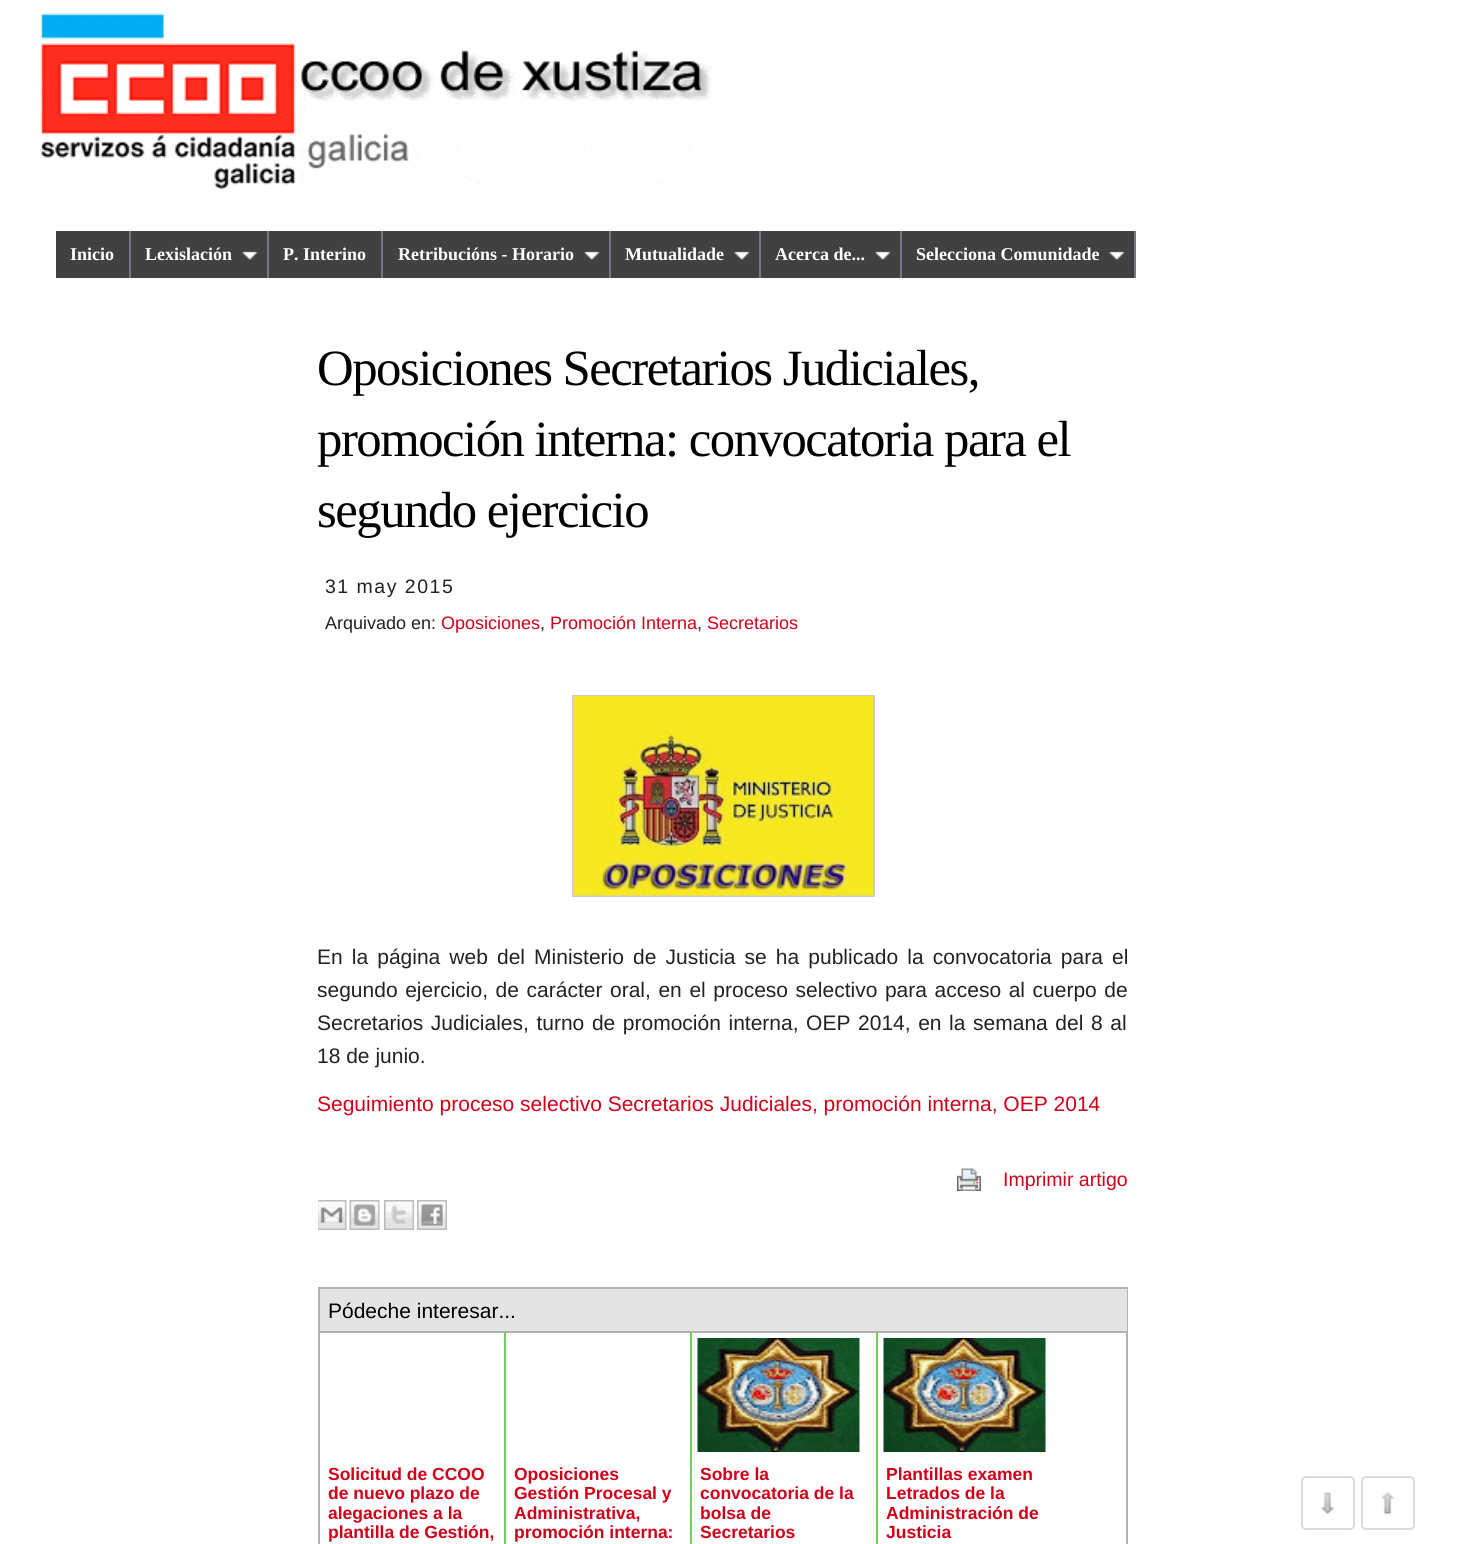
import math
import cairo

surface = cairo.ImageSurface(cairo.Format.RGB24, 1459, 1544)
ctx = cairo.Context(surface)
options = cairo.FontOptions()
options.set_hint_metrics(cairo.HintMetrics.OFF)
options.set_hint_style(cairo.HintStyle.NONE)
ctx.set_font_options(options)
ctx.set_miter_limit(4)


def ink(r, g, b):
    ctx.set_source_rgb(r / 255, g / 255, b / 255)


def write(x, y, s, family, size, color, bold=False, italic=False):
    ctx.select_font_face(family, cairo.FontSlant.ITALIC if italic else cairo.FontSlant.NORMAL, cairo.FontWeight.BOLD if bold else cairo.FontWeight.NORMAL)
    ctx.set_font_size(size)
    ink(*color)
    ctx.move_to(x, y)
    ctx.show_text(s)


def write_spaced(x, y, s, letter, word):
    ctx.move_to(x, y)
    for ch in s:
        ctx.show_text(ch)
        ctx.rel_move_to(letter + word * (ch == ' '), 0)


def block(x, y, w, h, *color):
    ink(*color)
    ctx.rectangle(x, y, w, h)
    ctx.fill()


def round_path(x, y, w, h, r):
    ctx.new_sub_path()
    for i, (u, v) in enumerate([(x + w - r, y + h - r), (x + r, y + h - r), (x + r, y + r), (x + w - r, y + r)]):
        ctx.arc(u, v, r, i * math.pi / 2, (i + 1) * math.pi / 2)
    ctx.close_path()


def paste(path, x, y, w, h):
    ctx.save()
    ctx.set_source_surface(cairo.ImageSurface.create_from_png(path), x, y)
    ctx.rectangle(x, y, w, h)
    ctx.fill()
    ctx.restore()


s1 = dict(family="Liberation Serif", size=18, color=(255, 255, 255), bold=True)
s2 = dict(family="Liberation Sans", size=18, color=(34, 34, 34))
s3 = dict(family="Liberation Sans", size=18, color=(209, 0, 25))
s4 = dict(family="Liberation Sans", size=21, color=(34, 34, 34))
s5 = dict(family="Liberation Sans", size=21, color=(209, 0, 25))
s6 = dict(family="Liberation Sans", size=19.5, color=(209, 0, 25))
s7 = dict(family="Liberation Sans", size=21, color=(0, 0, 0))
s8 = dict(family="Liberation Sans", size=17.5, color=(209, 0, 25), bold=True)

ink(255, 255, 255)
ctx.paint()
paste("pic1.png", 40, 13, 673, 176)
block(56, 231, 73, 47, 65, 65, 65)
block(129, 231, 2, 47, 119, 119, 136)
write(70, 260, "Inicio", **s1)
block(131, 231, 136, 47, 65, 65, 65)
block(267, 231, 2, 47, 119, 119, 136)
write(145, 260, "Lexislación", **s1)
paste("pic2.png", 241, 251, 17, 10)
block(269, 231, 112, 47, 65, 65, 65)
block(381, 231, 2, 47, 119, 119, 136)
write(283, 260, "P. Interino", **s1)
block(383, 231, 226, 47, 65, 65, 65)
block(609, 231, 2, 47, 119, 119, 136)
write(398, 260, "Retribucións - Horario", **s1)
paste("pic3.png", 583, 251, 17, 10)
block(611, 231, 148, 47, 65, 65, 65)
block(759, 231, 2, 47, 119, 119, 136)
write(625, 260, "Mutualidade", **s1)
paste("pic3.png", 733, 251, 17, 10)
block(761, 231, 139, 47, 65, 65, 65)
block(900, 231, 2, 47, 119, 119, 136)
write(775, 260, "Acerca de...", **s1)
paste("pic2.png", 874, 251, 17, 10)
block(902, 231, 232, 47, 65, 65, 65)
block(1134, 231, 2, 47, 119, 119, 136)
write(916, 260, "Selecciona Comunidade", **s1)
paste("pic2.png", 1108, 251, 17, 10)
ctx.select_font_face("Liberation Serif")
ctx.set_font_size(50.75)
ink(0, 0, 0)
write_spaced(317, 385, "Oposiciones Secretarios Judiciales,", -1.5, 0)
write_spaced(317, 456, "promoción interna: convocatoria para el", -1.5, 0)
write_spaced(317, 527, "segundo ejercicio", -1.5, 0)
ctx.select_font_face("Liberation Sans")
ctx.set_font_size(19.5)
ink(34, 34, 34)
write_spaced(325, 593, "31 may 2015", 1.5, 0)
write(325, 629, "Arquivado en:", **s2)
write(441, 629, "Oposiciones", **s3)
write(540, 629, ",", **s2)
write(550, 629, "Promoción Interna", **s3)
write(697, 629, ",", **s2)
write(707, 629, "Secretarios", **s3)
ctx.rectangle(573, 696, 301, 200)
ink(204, 204, 204)
ctx.stroke()
paste("pic4.png", 573, 696, 300, 200)
ctx.set_font_size(21)
ink(34, 34, 34)
write_spaced(317, 964, "En la página web del Ministerio de Justicia se ha publicado la convocatoria para el", 0, 3.25)
write_spaced(317, 997, "segundo ejercicio, de carácter oral, en el proceso selectivo para acceso al cuerpo de", 0, 1.75)
write_spaced(317, 1030, "Secretarios Judiciales, turno de promoción interna, OEP 2014, en la semana del 8 al", 0, 1.75)
write(317, 1063, "18 de junio.", **s4)
write(317, 1111, "Seguimiento proceso selectivo Secretarios Judiciales, promoción interna, OEP 2014", **s5)
paste("pic5.png", 957, 1168, 24, 23)
write(1003, 1186, "Imprimir artigo", **s6)
paste("pic6.png", 318, 1200, 29, 30)
paste("pic7.png", 349, 1200, 31, 30)
paste("pic8.png", 384, 1200, 30, 30)
paste("pic9.png", 417, 1200, 30, 30)
ctx.rectangle(319, 1288, 808, 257)
ink(179, 179, 179)
ctx.stroke()
block(320, 1289, 807, 42, 228, 228, 228)
block(320, 1331, 807, 2, 179, 179, 179)
write(328, 1318, "Pódeche interesar...", **s7)
write(328, 1480, "Solicitud de CCOO", **s8)
write(328, 1499, "de nuevo plazo de", **s8)
write(328, 1519, "alegaciones a la", **s8)
write(328, 1538, "plantilla de Gestión,", **s8)
block(504, 1332, 2, 212, 110, 207, 89)
write(514, 1480, "Oposiciones", **s8)
write(514, 1499, "Gestión Procesal y", **s8)
write(514, 1519, "Administrativa,", **s8)
write(514, 1538, "promoción interna:", **s8)
block(690, 1332, 2, 212, 110, 207, 89)
paste("pic10.png", 697, 1338, 163, 114)
write(700, 1480, "Sobre la", **s8)
write(700, 1499, "convocatoria de la", **s8)
write(700, 1519, "bolsa de", **s8)
write(700, 1538, "Secretarios", **s8)
block(876, 1332, 2, 212, 110, 207, 89)
paste("pic11.png", 883, 1338, 163, 114)
write(886, 1480, "Plantillas examen", **s8)
write(886, 1499, "Letrados de la", **s8)
write(886, 1519, "Administración de", **s8)
write(886, 1538, "Justicia", **s8)
paste("pic12.png", 1320, 1492, 15, 22)
round_path(1302, 1477, 52, 52, 4)
ink(219, 219, 219)
ctx.stroke()
paste("pic13.png", 1381, 1492, 13, 22)
round_path(1362, 1477, 52, 52, 4)
ctx.stroke()
surface.write_to_png("screenshot.png")
